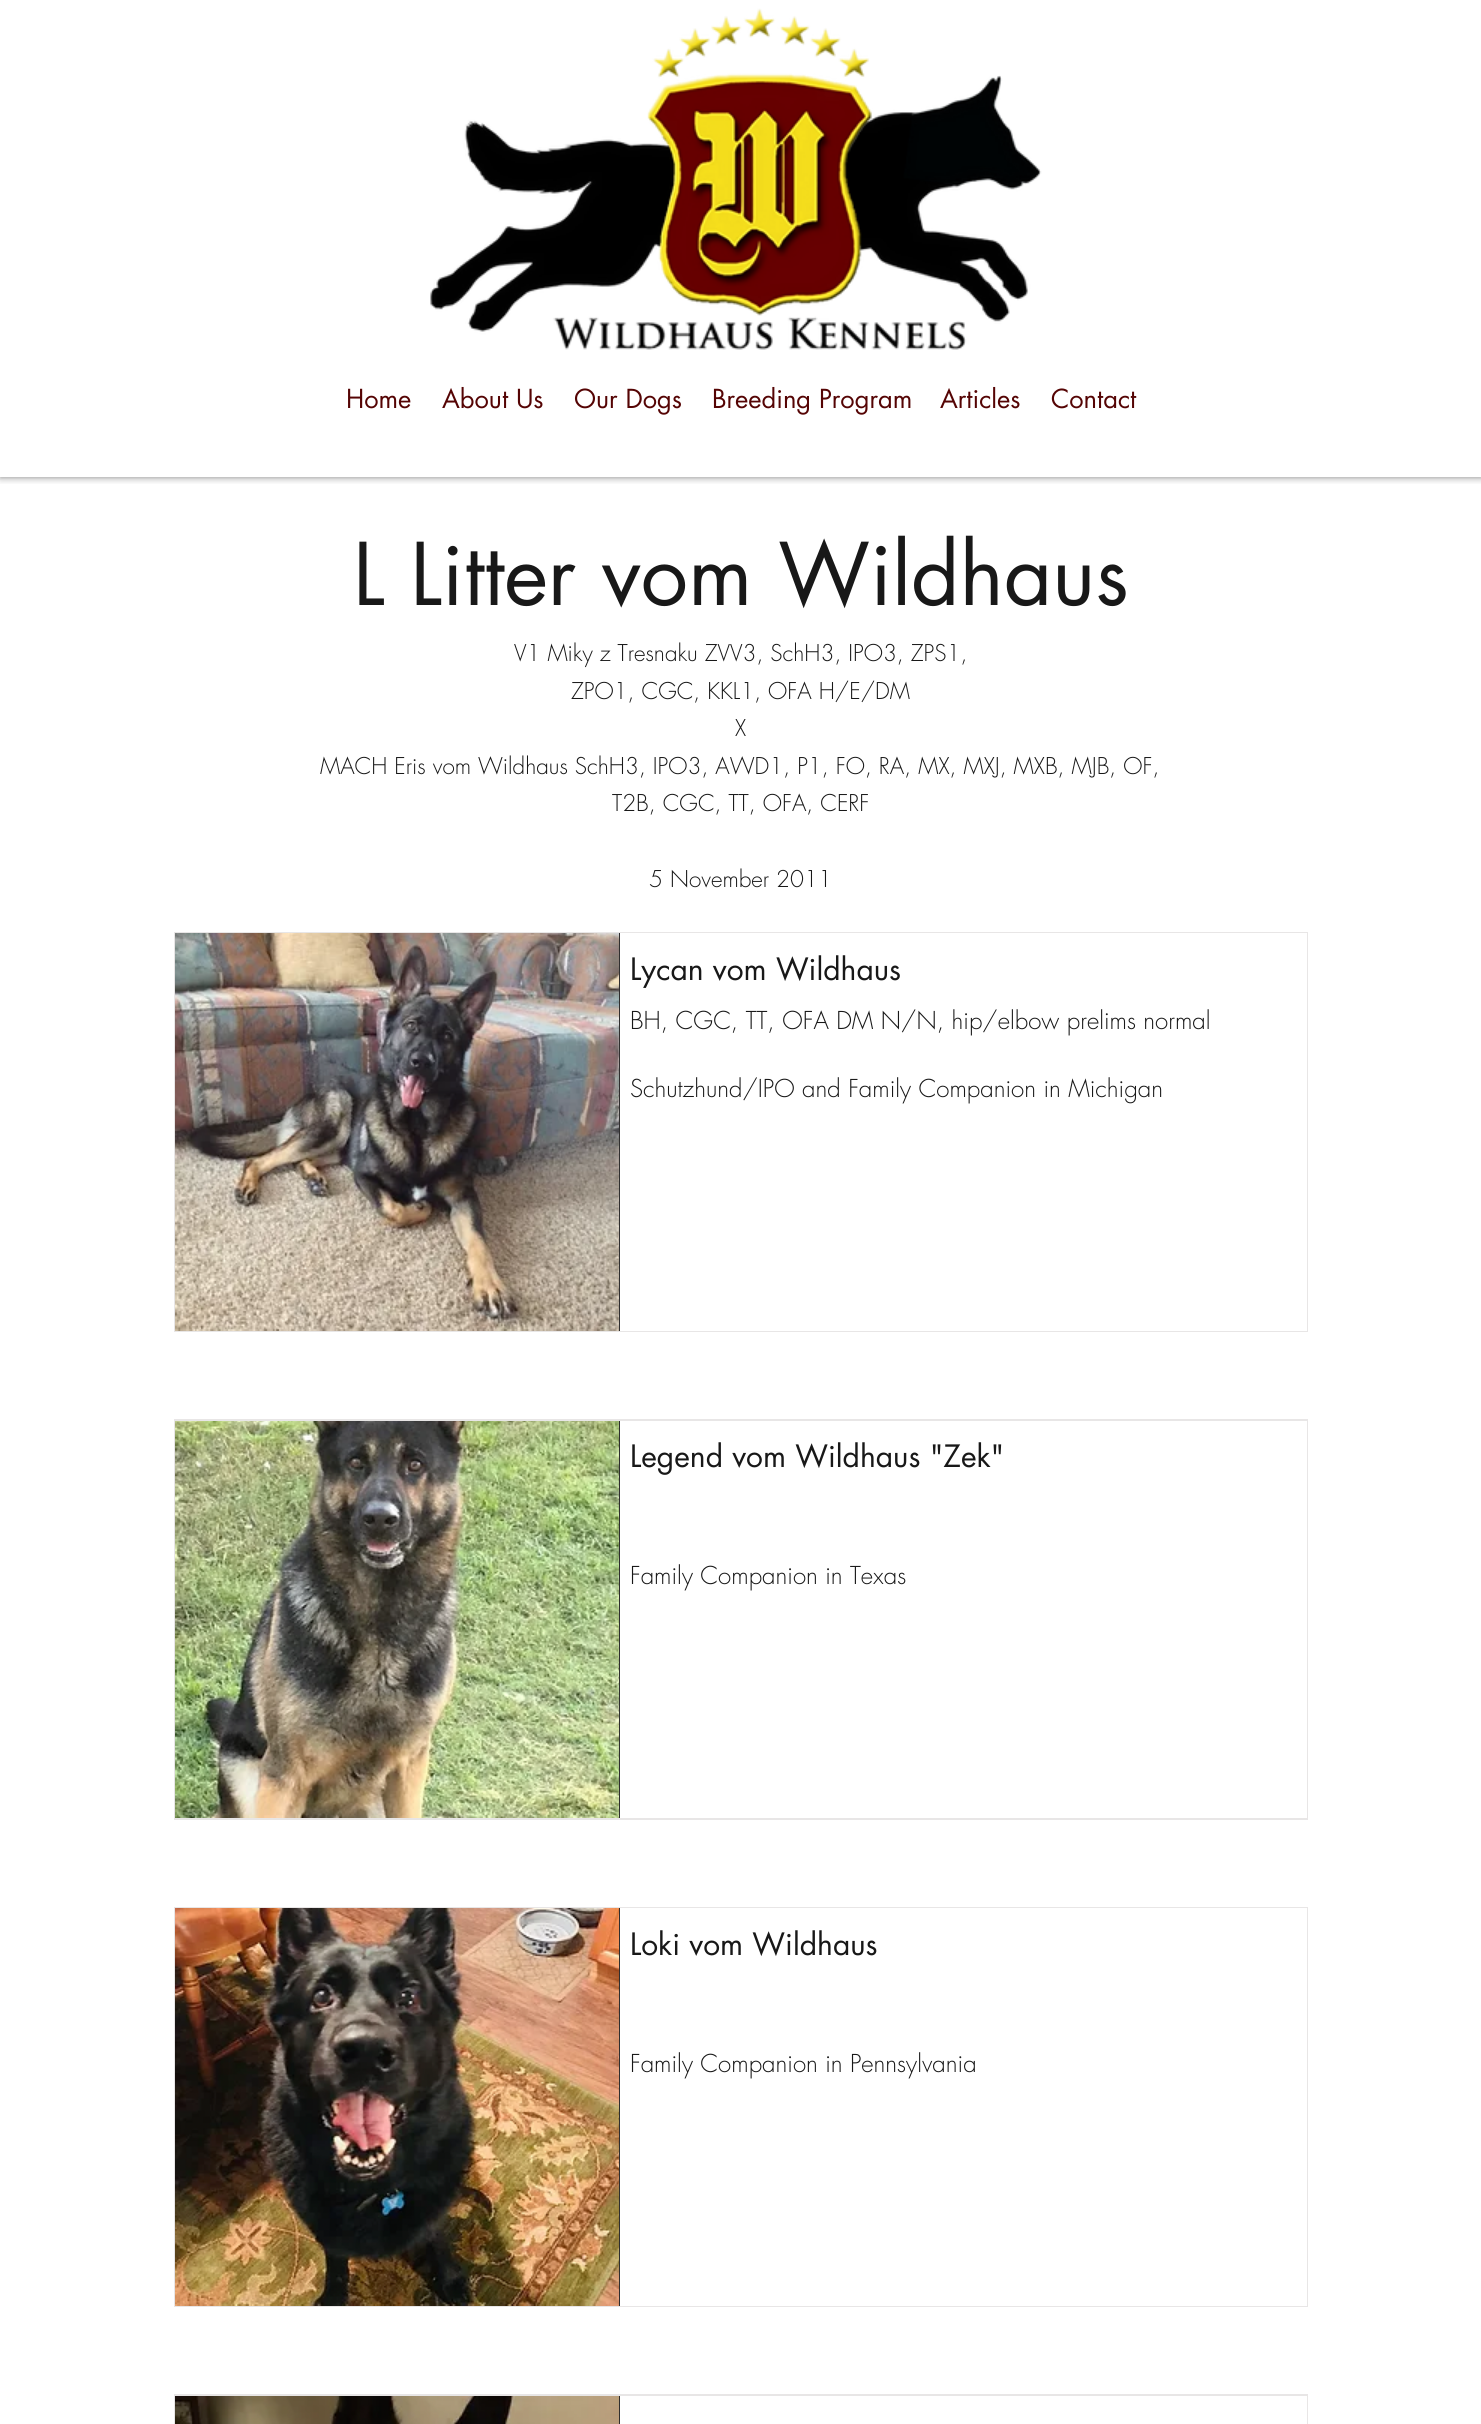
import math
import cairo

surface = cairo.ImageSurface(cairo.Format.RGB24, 1481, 2424)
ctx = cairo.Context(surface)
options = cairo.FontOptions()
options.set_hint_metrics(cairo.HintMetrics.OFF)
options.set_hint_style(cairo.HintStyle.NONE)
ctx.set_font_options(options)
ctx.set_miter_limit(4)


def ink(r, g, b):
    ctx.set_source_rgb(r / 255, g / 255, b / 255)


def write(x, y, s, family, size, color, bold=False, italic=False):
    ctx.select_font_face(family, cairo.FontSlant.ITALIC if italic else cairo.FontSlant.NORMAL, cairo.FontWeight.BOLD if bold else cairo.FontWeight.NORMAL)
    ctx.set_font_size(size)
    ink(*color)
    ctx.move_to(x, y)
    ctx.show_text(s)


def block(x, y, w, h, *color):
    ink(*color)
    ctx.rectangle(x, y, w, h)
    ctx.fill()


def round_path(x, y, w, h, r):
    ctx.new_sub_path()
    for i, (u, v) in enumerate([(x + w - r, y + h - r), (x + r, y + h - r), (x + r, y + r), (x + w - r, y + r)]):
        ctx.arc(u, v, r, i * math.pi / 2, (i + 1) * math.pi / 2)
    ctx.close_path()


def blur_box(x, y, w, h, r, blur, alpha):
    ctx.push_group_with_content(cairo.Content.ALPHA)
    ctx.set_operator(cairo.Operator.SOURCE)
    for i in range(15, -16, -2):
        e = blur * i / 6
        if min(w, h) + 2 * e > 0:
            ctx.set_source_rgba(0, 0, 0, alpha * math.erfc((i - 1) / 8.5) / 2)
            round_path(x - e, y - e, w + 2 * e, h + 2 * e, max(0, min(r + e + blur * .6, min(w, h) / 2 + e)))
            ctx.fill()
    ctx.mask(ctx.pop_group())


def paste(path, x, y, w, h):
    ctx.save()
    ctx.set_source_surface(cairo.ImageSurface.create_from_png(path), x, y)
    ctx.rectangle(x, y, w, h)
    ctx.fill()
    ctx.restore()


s1 = dict(family="futura", size=25.5, color=(85, 4, 4))
s2 = dict(family="futura", size=84, color=(24, 24, 24))
s3 = dict(family="futura Light", size=22.5, color=(24, 24, 24))
s4 = dict(family="futura", size=30, color=(24, 24, 24))
s5 = dict(family="futura Light", size=24, color=(24, 24, 24))

ink(255, 255, 255)
ctx.paint()
ctx.save()
ctx.rectangle(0, 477, 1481, 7)
ctx.clip()
ink(0, 0, 0)
blur_box(0, 0, 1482, 477, 0, 4, 0.5)
ctx.restore()
paste("pic1.png", 430, 8, 612, 342)
write(346, 408, "Home", **s1)
write(442, 408, "About Us", **s1)
write(574, 408, "Our Dogs", **s1)
write(712, 408, "Breeding Program", **s1)
write(940, 408, "Articles", **s1)
write(1051, 408, "Contact", **s1)
write(353, 605, "L Litter vom Wildhaus", **s2)
write(514, 661, "V1 Miky z Tresnaku ZVV3, SchH3, IPO3, ZPS1,", **s3)
write(571, 699, "ZPO1, CGC, KKL1, OFA H/E/DM", **s3)
write(735, 736, "X", **s3)
write(320, 774, "MACH Eris vom Wildhaus SchH3, IPO3, AWD1, P1, FO, RA, MX, MXJ, MXB, MJB, OF,", **s3)
write(612, 811, "T2B, CGC, TT, OFA, CERF", **s3)
write(649, 887, "5 November 2011", **s3)
ctx.rectangle(175, 933, 1132, 398)
ink(232, 230, 230)
ctx.stroke()
block(620, 933, 687, 398, 255, 255, 255)
block(619, 933, 1, 398, 47, 46, 46)
paste("pic2.png", 175, 933, 444, 398)
write(630, 980, "Lycan vom Wildhaus", **s4)
write(630, 1029, "BH, CGC, TT, OFA DM N/N, hip/elbow prelims normal", **s5)
write(630, 1097, "Schutzhund/IPO and Family Companion in Michigan", **s5)
ctx.rectangle(175, 1420, 1132, 399)
ink(232, 230, 230)
ctx.stroke()
block(619, 1421, 1, 397, 47, 46, 46)
paste("pic3.png", 175, 1421, 444, 397)
write(630, 1467, "Legend vom Wildhaus \"Zek\"", **s4)
write(630, 1584, "Family Companion in Texas", **s5)
block(1306, 1421, 1, 397, 255, 255, 255)
ctx.rectangle(175, 1908, 1132, 398)
ink(232, 230, 230)
ctx.stroke()
block(620, 1908, 687, 398, 255, 255, 255)
block(619, 1908, 1, 398, 47, 46, 46)
paste("pic4.png", 175, 1908, 444, 398)
write(630, 1955, "Loki vom Wildhaus", **s4)
write(630, 2072, "Family Companion in Pennsylvania", **s5)
ctx.rectangle(175, 2395, 1132, 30)
ink(232, 230, 230)
ctx.stroke()
block(619, 2396, 1, 28, 47, 46, 46)
paste("pic5.png", 175, 2396, 444, 28)
block(1306, 2396, 1, 28, 255, 255, 255)
surface.write_to_png("screenshot.png")
